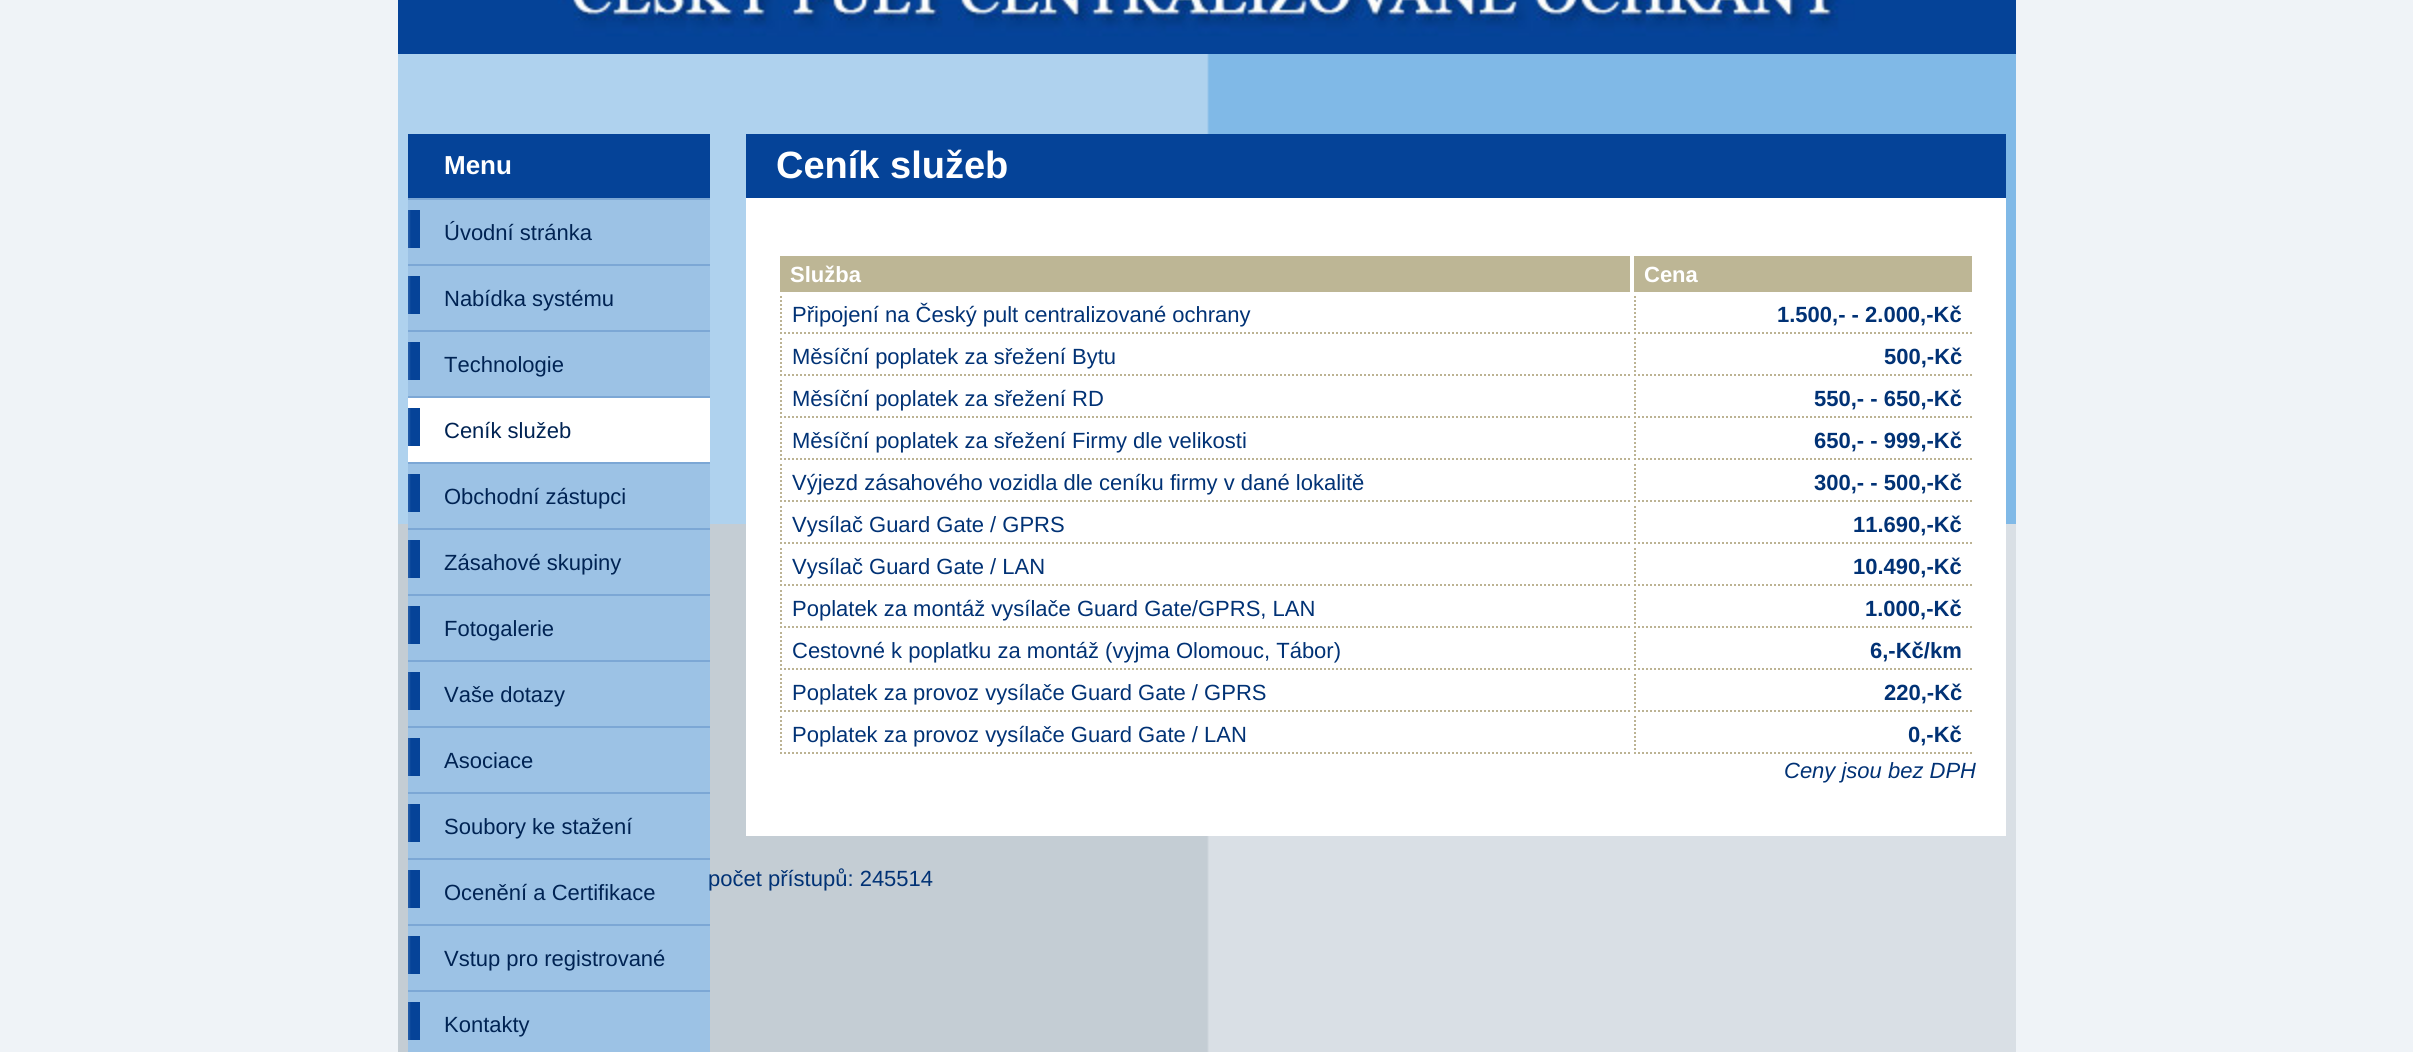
import math
import cairo

surface = cairo.ImageSurface(cairo.Format.RGB24, 2413, 1052)
ctx = cairo.Context(surface)
options = cairo.FontOptions()
options.set_hint_metrics(cairo.HintMetrics.OFF)
options.set_hint_style(cairo.HintStyle.NONE)
ctx.set_font_options(options)
ctx.set_miter_limit(4)


def ink(r, g, b):
    ctx.set_source_rgb(r / 255, g / 255, b / 255)


def write(x, y, s, family, size, color, bold=False, italic=False):
    ctx.select_font_face(family, cairo.FontSlant.ITALIC if italic else cairo.FontSlant.NORMAL, cairo.FontWeight.BOLD if bold else cairo.FontWeight.NORMAL)
    ctx.set_font_size(size)
    ink(*color)
    ctx.move_to(x, y)
    ctx.show_text(s)


def block(x, y, w, h, *color):
    ink(*color)
    ctx.rectangle(x, y, w, h)
    ctx.fill()


def paste(path, x, y, w, h):
    ctx.save()
    ctx.set_source_surface(cairo.ImageSurface.create_from_png(path), x, y)
    ctx.rectangle(x, y, w, h)
    ctx.fill()
    ctx.restore()


s1 = dict(family="Liberation Sans", size=26, color=(255, 255, 255), bold=True)
s2 = dict(family="Liberation Sans", size=22, color=(0, 35, 83))
s3 = dict(family="Liberation Sans", size=38, color=(255, 255, 255), bold=True)
s4 = dict(family="Liberation Sans", size=22, color=(255, 255, 255), bold=True)
s5 = dict(family="Liberation Sans", size=22, color=(1, 50, 117))
s6 = dict(family="Liberation Sans", size=22, color=(1, 50, 117), bold=True)
s7 = dict(family="Liberation Sans", size=22, color=(1, 50, 117), italic=True)

ink(239, 243, 247)
ctx.paint()
paste("pic1.png", 398, 0, 1618, 54)
paste("pic2.png", 398, 524, 1618, 528)
paste("pic3.png", 398, 54, 1618, 470)
block(408, 134, 302, 64, 5, 67, 152)
block(408, 198, 302, 2, 124, 167, 213)
write(444, 174, "Menu", **s1)
block(408, 200, 302, 64, 156, 194, 229)
paste("pic4.png", 408, 210, 12, 38)
block(408, 264, 302, 2, 124, 167, 213)
write(444, 240, "Úvodní stránka", **s2)
block(408, 266, 302, 64, 156, 194, 229)
paste("pic4.png", 408, 276, 12, 38)
block(408, 330, 302, 2, 124, 167, 213)
write(444, 306, "Nabídka systému", **s2)
block(408, 332, 302, 64, 156, 194, 229)
paste("pic4.png", 408, 342, 12, 38)
block(408, 396, 302, 2, 124, 167, 213)
write(444, 372, "Technologie", **s2)
block(408, 398, 302, 64, 255, 255, 255)
paste("pic4.png", 408, 408, 12, 38)
block(408, 462, 302, 2, 124, 167, 213)
write(444, 438, "Ceník služeb", **s2)
block(408, 464, 302, 64, 156, 194, 229)
paste("pic4.png", 408, 474, 12, 38)
block(408, 528, 302, 2, 124, 167, 213)
write(444, 504, "Obchodní zástupci", **s2)
block(408, 530, 302, 64, 156, 194, 229)
paste("pic4.png", 408, 540, 12, 38)
block(408, 594, 302, 2, 124, 167, 213)
write(444, 570, "Zásahové skupiny", **s2)
block(408, 596, 302, 64, 156, 194, 229)
paste("pic4.png", 408, 606, 12, 38)
block(408, 660, 302, 2, 124, 167, 213)
write(444, 636, "Fotogalerie", **s2)
block(408, 662, 302, 64, 156, 194, 229)
paste("pic4.png", 408, 672, 12, 38)
block(408, 726, 302, 2, 124, 167, 213)
write(444, 702, "Vaše dotazy", **s2)
block(408, 728, 302, 64, 156, 194, 229)
paste("pic4.png", 408, 738, 12, 38)
block(408, 792, 302, 2, 124, 167, 213)
write(444, 768, "Asociace", **s2)
block(408, 794, 302, 64, 156, 194, 229)
paste("pic4.png", 408, 804, 12, 38)
block(408, 858, 302, 2, 124, 167, 213)
write(444, 834, "Soubory ke stažení", **s2)
block(408, 860, 302, 64, 156, 194, 229)
paste("pic4.png", 408, 870, 12, 38)
block(408, 924, 302, 2, 124, 167, 213)
write(444, 900, "Ocenění a Certifikace", **s2)
block(408, 926, 302, 64, 156, 194, 229)
paste("pic4.png", 408, 936, 12, 38)
block(408, 990, 302, 2, 124, 167, 213)
write(444, 966, "Vstup pro registrované", **s2)
block(408, 992, 302, 60, 156, 194, 229)
paste("pic4.png", 408, 1002, 12, 38)
write(444, 1032, "Kontakty", **s2)
block(746, 198, 1260, 638, 255, 255, 255)
block(746, 134, 1260, 64, 5, 67, 152)
write(776, 178, "Ceník služeb", **s3)
block(780, 256, 850, 36, 189, 182, 149)
write(790, 282, "Služba", **s4)
block(1634, 256, 338, 36, 189, 182, 149)
write(1644, 282, "Cena", **s4)
ctx.new_path()
ctx.move_to(780, 333)
ctx.line_to(1630, 333)
ink(188, 179, 147)
ctx.set_dash([2, 2])
ctx.stroke()
ctx.new_path()
ctx.move_to(781, 296)
ctx.line_to(781, 334)
ctx.stroke()
write(792, 322, "Připojení na Český pult centralizované ochrany", **s5)
ctx.new_path()
ctx.move_to(1634, 333)
ctx.line_to(1972, 333)
ink(188, 179, 147)
ctx.stroke()
ctx.new_path()
ctx.move_to(1635, 296)
ctx.line_to(1635, 334)
ctx.stroke()
write(1777, 322, "1.500,- - 2.000,-Kč", **s6)
ctx.new_path()
ctx.move_to(780, 375)
ctx.line_to(1630, 375)
ink(188, 179, 147)
ctx.stroke()
ctx.new_path()
ctx.move_to(781, 338)
ctx.line_to(781, 376)
ctx.stroke()
write(792, 364, "Měsíční poplatek za sřežení Bytu", **s5)
ctx.new_path()
ctx.move_to(1634, 375)
ctx.line_to(1972, 375)
ink(188, 179, 147)
ctx.stroke()
ctx.new_path()
ctx.move_to(1635, 338)
ctx.line_to(1635, 376)
ctx.stroke()
write(1884, 364, "500,-Kč", **s6)
ctx.new_path()
ctx.move_to(780, 417)
ctx.line_to(1630, 417)
ink(188, 179, 147)
ctx.stroke()
ctx.new_path()
ctx.move_to(781, 380)
ctx.line_to(781, 418)
ctx.stroke()
write(792, 406, "Měsíční poplatek za sřežení RD", **s5)
ctx.new_path()
ctx.move_to(1634, 417)
ctx.line_to(1972, 417)
ink(188, 179, 147)
ctx.stroke()
ctx.new_path()
ctx.move_to(1635, 380)
ctx.line_to(1635, 418)
ctx.stroke()
write(1814, 406, "550,- - 650,-Kč", **s6)
ctx.new_path()
ctx.move_to(780, 459)
ctx.line_to(1630, 459)
ink(188, 179, 147)
ctx.stroke()
ctx.new_path()
ctx.move_to(781, 422)
ctx.line_to(781, 460)
ctx.stroke()
write(792, 448, "Měsíční poplatek za sřežení Firmy dle velikosti", **s5)
ctx.new_path()
ctx.move_to(1634, 459)
ctx.line_to(1972, 459)
ink(188, 179, 147)
ctx.stroke()
ctx.new_path()
ctx.move_to(1635, 422)
ctx.line_to(1635, 460)
ctx.stroke()
write(1814, 448, "650,- - 999,-Kč", **s6)
ctx.new_path()
ctx.move_to(780, 501)
ctx.line_to(1630, 501)
ink(188, 179, 147)
ctx.stroke()
ctx.new_path()
ctx.move_to(781, 464)
ctx.line_to(781, 502)
ctx.stroke()
write(792, 490, "Výjezd zásahového vozidla dle ceníku firmy v dané lokalitě", **s5)
ctx.new_path()
ctx.move_to(1634, 501)
ctx.line_to(1972, 501)
ink(188, 179, 147)
ctx.stroke()
ctx.new_path()
ctx.move_to(1635, 464)
ctx.line_to(1635, 502)
ctx.stroke()
write(1814, 490, "300,- - 500,-Kč", **s6)
ctx.new_path()
ctx.move_to(780, 543)
ctx.line_to(1630, 543)
ink(188, 179, 147)
ctx.stroke()
ctx.new_path()
ctx.move_to(781, 506)
ctx.line_to(781, 544)
ctx.stroke()
write(792, 532, "Vysílač Guard Gate / GPRS", **s5)
ctx.new_path()
ctx.move_to(1634, 543)
ctx.line_to(1972, 543)
ink(188, 179, 147)
ctx.stroke()
ctx.new_path()
ctx.move_to(1635, 506)
ctx.line_to(1635, 544)
ctx.stroke()
write(1853, 532, "11.690,-Kč", **s6)
ctx.new_path()
ctx.move_to(780, 585)
ctx.line_to(1630, 585)
ink(188, 179, 147)
ctx.stroke()
ctx.new_path()
ctx.move_to(781, 548)
ctx.line_to(781, 586)
ctx.stroke()
write(792, 574, "Vysílač Guard Gate / LAN", **s5)
ctx.new_path()
ctx.move_to(1634, 585)
ctx.line_to(1972, 585)
ink(188, 179, 147)
ctx.stroke()
ctx.new_path()
ctx.move_to(1635, 548)
ctx.line_to(1635, 586)
ctx.stroke()
write(1853, 574, "10.490,-Kč", **s6)
ctx.new_path()
ctx.move_to(780, 627)
ctx.line_to(1630, 627)
ink(188, 179, 147)
ctx.stroke()
ctx.new_path()
ctx.move_to(781, 590)
ctx.line_to(781, 628)
ctx.stroke()
write(792, 616, "Poplatek za montáž vysílače Guard Gate/GPRS, LAN", **s5)
ctx.new_path()
ctx.move_to(1634, 627)
ctx.line_to(1972, 627)
ink(188, 179, 147)
ctx.stroke()
ctx.new_path()
ctx.move_to(1635, 590)
ctx.line_to(1635, 628)
ctx.stroke()
write(1865, 616, "1.000,-Kč", **s6)
ctx.new_path()
ctx.move_to(780, 669)
ctx.line_to(1630, 669)
ink(188, 179, 147)
ctx.stroke()
ctx.new_path()
ctx.move_to(781, 632)
ctx.line_to(781, 670)
ctx.stroke()
write(792, 658, "Cestovné k poplatku za montáž (vyjma Olomouc, Tábor)", **s5)
ctx.new_path()
ctx.move_to(1634, 669)
ctx.line_to(1972, 669)
ink(188, 179, 147)
ctx.stroke()
ctx.new_path()
ctx.move_to(1635, 632)
ctx.line_to(1635, 670)
ctx.stroke()
write(1870, 658, "6,-Kč/km", **s6)
ctx.new_path()
ctx.move_to(780, 711)
ctx.line_to(1630, 711)
ink(188, 179, 147)
ctx.stroke()
ctx.new_path()
ctx.move_to(781, 674)
ctx.line_to(781, 712)
ctx.stroke()
write(792, 700, "Poplatek za provoz vysílače Guard Gate / GPRS", **s5)
ctx.new_path()
ctx.move_to(1634, 711)
ctx.line_to(1972, 711)
ink(188, 179, 147)
ctx.stroke()
ctx.new_path()
ctx.move_to(1635, 674)
ctx.line_to(1635, 712)
ctx.stroke()
write(1884, 700, "220,-Kč", **s6)
ctx.new_path()
ctx.move_to(780, 753)
ctx.line_to(1630, 753)
ink(188, 179, 147)
ctx.stroke()
ctx.new_path()
ctx.move_to(781, 716)
ctx.line_to(781, 754)
ctx.stroke()
write(792, 742, "Poplatek za provoz vysílače Guard Gate / LAN", **s5)
ctx.new_path()
ctx.move_to(1634, 753)
ctx.line_to(1972, 753)
ink(188, 179, 147)
ctx.stroke()
ctx.new_path()
ctx.move_to(1635, 716)
ctx.line_to(1635, 754)
ctx.stroke()
write(1908, 742, "0,-Kč", **s6)
write(1784, 778, "Ceny jsou bez DPH", **s7)
write(708, 886, "počet přístupů: 245514", **s5)
surface.write_to_png("screenshot.png")
